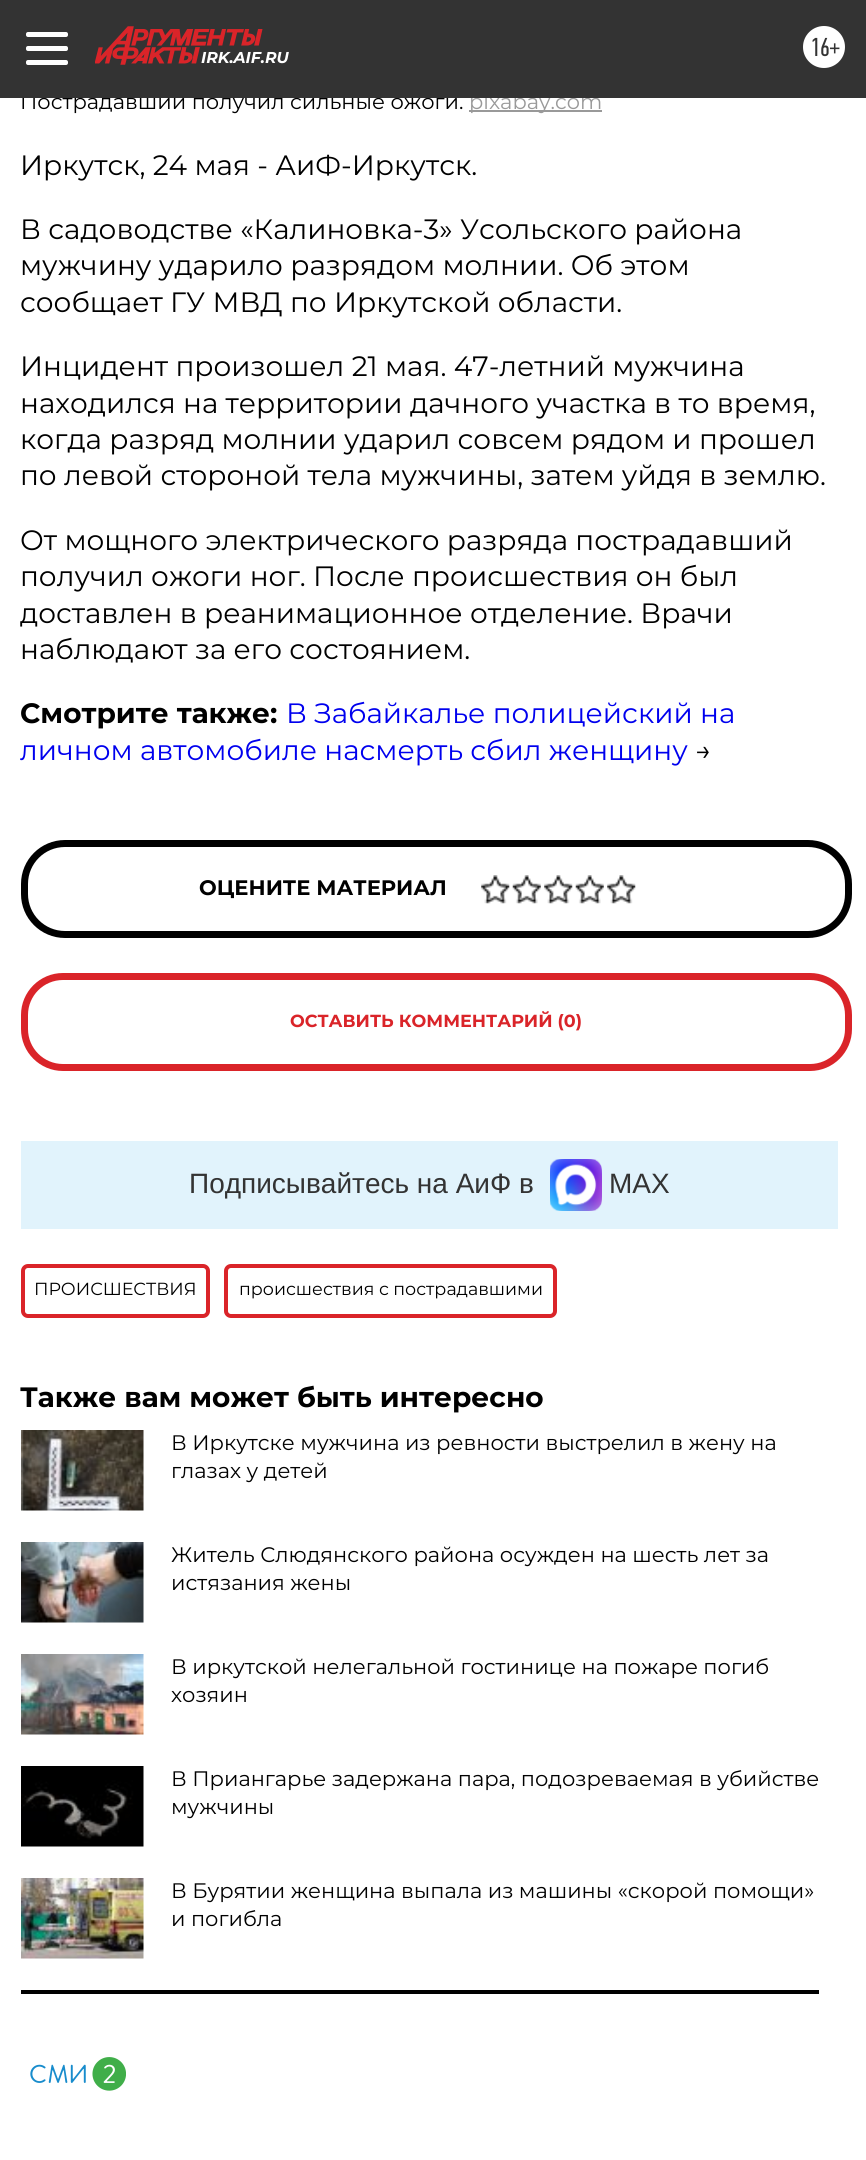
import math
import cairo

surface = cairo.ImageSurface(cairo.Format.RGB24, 866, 2160)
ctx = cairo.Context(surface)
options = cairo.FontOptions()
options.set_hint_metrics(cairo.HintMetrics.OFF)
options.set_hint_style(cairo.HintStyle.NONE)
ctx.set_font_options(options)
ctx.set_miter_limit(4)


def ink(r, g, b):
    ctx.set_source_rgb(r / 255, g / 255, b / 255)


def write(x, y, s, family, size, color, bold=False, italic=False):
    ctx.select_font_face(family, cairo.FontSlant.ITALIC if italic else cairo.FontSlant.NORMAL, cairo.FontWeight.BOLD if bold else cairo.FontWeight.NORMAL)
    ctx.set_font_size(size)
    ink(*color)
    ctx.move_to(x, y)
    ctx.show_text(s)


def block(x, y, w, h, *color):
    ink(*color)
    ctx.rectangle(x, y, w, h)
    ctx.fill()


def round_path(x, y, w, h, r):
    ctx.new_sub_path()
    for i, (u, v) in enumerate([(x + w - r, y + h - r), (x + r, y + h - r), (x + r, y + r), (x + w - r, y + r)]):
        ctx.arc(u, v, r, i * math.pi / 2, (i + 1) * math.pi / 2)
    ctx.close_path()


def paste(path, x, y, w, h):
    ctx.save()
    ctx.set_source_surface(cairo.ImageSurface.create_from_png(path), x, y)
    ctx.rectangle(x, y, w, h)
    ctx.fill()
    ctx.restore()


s1 = dict(family="Montserrat", size=21, color=(0, 0, 0))
s2 = dict(family="Montserrat", size=21, color=(153, 153, 153))
s3 = dict(family="Montserrat", size=15.75, color=(255, 255, 255), bold=True, italic=True)
s4 = dict(family="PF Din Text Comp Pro", size=26, color=(51, 51, 51))
s5 = dict(family="Montserrat", size=28, color=(0, 0, 0))
s6 = dict(family="Montserrat", size=28, color=(0, 0, 0), bold=True)
s7 = dict(family="Montserrat", size=28, color=(0, 0, 238))
s8 = dict(family="Montserrat", size=21, color=(0, 0, 0), bold=True)
s9 = dict(family="Montserrat", size=17.5, color=(218, 36, 41), bold=True)
s10 = dict(family="Liberation Sans", size=28, color=(51, 51, 51))
s11 = dict(family="Montserrat", size=17.5, color=(0, 0, 0))

ink(255, 255, 255)
ctx.paint()
write(20, 109, "Пострадавший получил сильные ожоги.", **s1)
block(469, 110, 133, 2, 153, 153, 153)
write(469, 109, "pixabay.com", **s2)
block(0, 0, 866, 98, 51, 51, 51)
ink(255, 255, 255)
round_path(26, 32, 42, 5, 2)
ctx.fill()
round_path(26, 46, 42, 5, 2)
ctx.fill()
round_path(26, 60, 42, 5, 2)
ctx.fill()
paste("pic1.png", 95, 26, 168, 39)
write(201, 63, "IRK.AIF.RU", **s3)
ctx.new_path()
ctx.arc(824, 47, 21, 0, 2 * math.pi)
ctx.fill()
write(810, 56, "16+", **s4)
write(20, 175, "Иркутск, 24 мая - АиФ-Иркутск.", **s5)
write(20, 239, "В садоводстве «Калиновка-3» Усольского района", **s5)
write(20, 275, "мужчину ударило разрядом молнии. Об этом", **s5)
write(20, 312, "сообщает ГУ МВД по Иркутской области.", **s5)
write(20, 376, "Инцидент произошел 21 мая. 47-летний мужчина", **s5)
write(20, 413, "находился на территории дачного участка в то время,", **s5)
write(20, 449, "когда разряд молнии ударил совсем рядом и прошел", **s5)
write(20, 485, "по левой стороной тела мужчины, затем уйдя в землю.", **s5)
write(20, 550, "От мощного электрического разряда пострадавший", **s5)
write(20, 586, "получил ожоги ног. После происшествия он был", **s5)
write(20, 623, "доставлен в реанимационное отделение. Врачи", **s5)
write(20, 659, "наблюдают за его состоянием.", **s5)
write(20, 723, "Смотрите также:", **s6)
write(286, 723, "В Забайкалье полицейский на", **s7)
write(20, 760, "личном автомобиле насмерть сбил женщину", **s7)
write(695, 760, "→", **s5)
round_path(24.5, 843.5, 824, 91, 40.5)
ctx.set_line_width(7)
ctx.stroke()
write(199, 895, "ОЦЕНИТЕ МАТЕРИАЛ", **s8)
paste("pic2.png", 481, 875, 29, 29)
paste("pic3.png", 512, 875, 29, 29)
paste("pic4.png", 544, 875, 29, 29)
paste("pic3.png", 575, 875, 29, 29)
paste("pic2.png", 607, 875, 29, 29)
round_path(24.5, 976.5, 824, 91, 38.5)
ink(218, 36, 41)
ctx.stroke()
write(290, 1027, "ОСТАВИТЬ КОММЕНТАРИЙ (0)", **s9)
block(21, 1141, 817, 88, 225, 243, 252)
write(189, 1193, "Подписывайтесь на АиФ в", **s10)
paste("pic5.png", 550, 1159, 52, 52)
write(609, 1193, "MAX", **s10)
round_path(23, 1266, 185, 50, 5)
ink(218, 36, 41)
ctx.set_line_width(4)
ctx.stroke()
write(34, 1295, "ПРОИСШЕСТВИЯ", **s11)
round_path(226, 1266, 329, 50, 5)
ink(218, 36, 41)
ctx.stroke()
write(239, 1295, "происшествия с пострадавшими", **s11)
write(20, 1407, "Также вам может быть интересно", **s6)
block(21, 1990, 798, 4, 0, 0, 0)
paste("pic6.png", 21, 1430, 123, 81)
write(171, 1450, "В Иркутске мужчина из ревности выстрелил в жену на", **s1)
write(171, 1478, "глазах у детей", **s1)
paste("pic7.png", 21, 1542, 123, 81)
write(171, 1562, "Житель Слюдянского района осужден на шесть лет за", **s1)
write(171, 1590, "истязания жены", **s1)
paste("pic8.png", 21, 1654, 123, 81)
write(171, 1674, "В иркутской нелегальной гостинице на пожаре погиб", **s1)
write(171, 1702, "хозяин", **s1)
paste("pic9.png", 21, 1766, 123, 81)
write(171, 1786, "В Приангарье задержана пара, подозреваемая в убийстве", **s1)
write(171, 1814, "мужчины", **s1)
paste("pic10.png", 21, 1878, 123, 81)
write(171, 1898, "В Бурятии женщина выпала из машины «скорой помощи»", **s1)
write(171, 1926, "и погибла", **s1)
paste("pic11.png", 30, 2057, 96, 34)
surface.write_to_png("screenshot.png")
